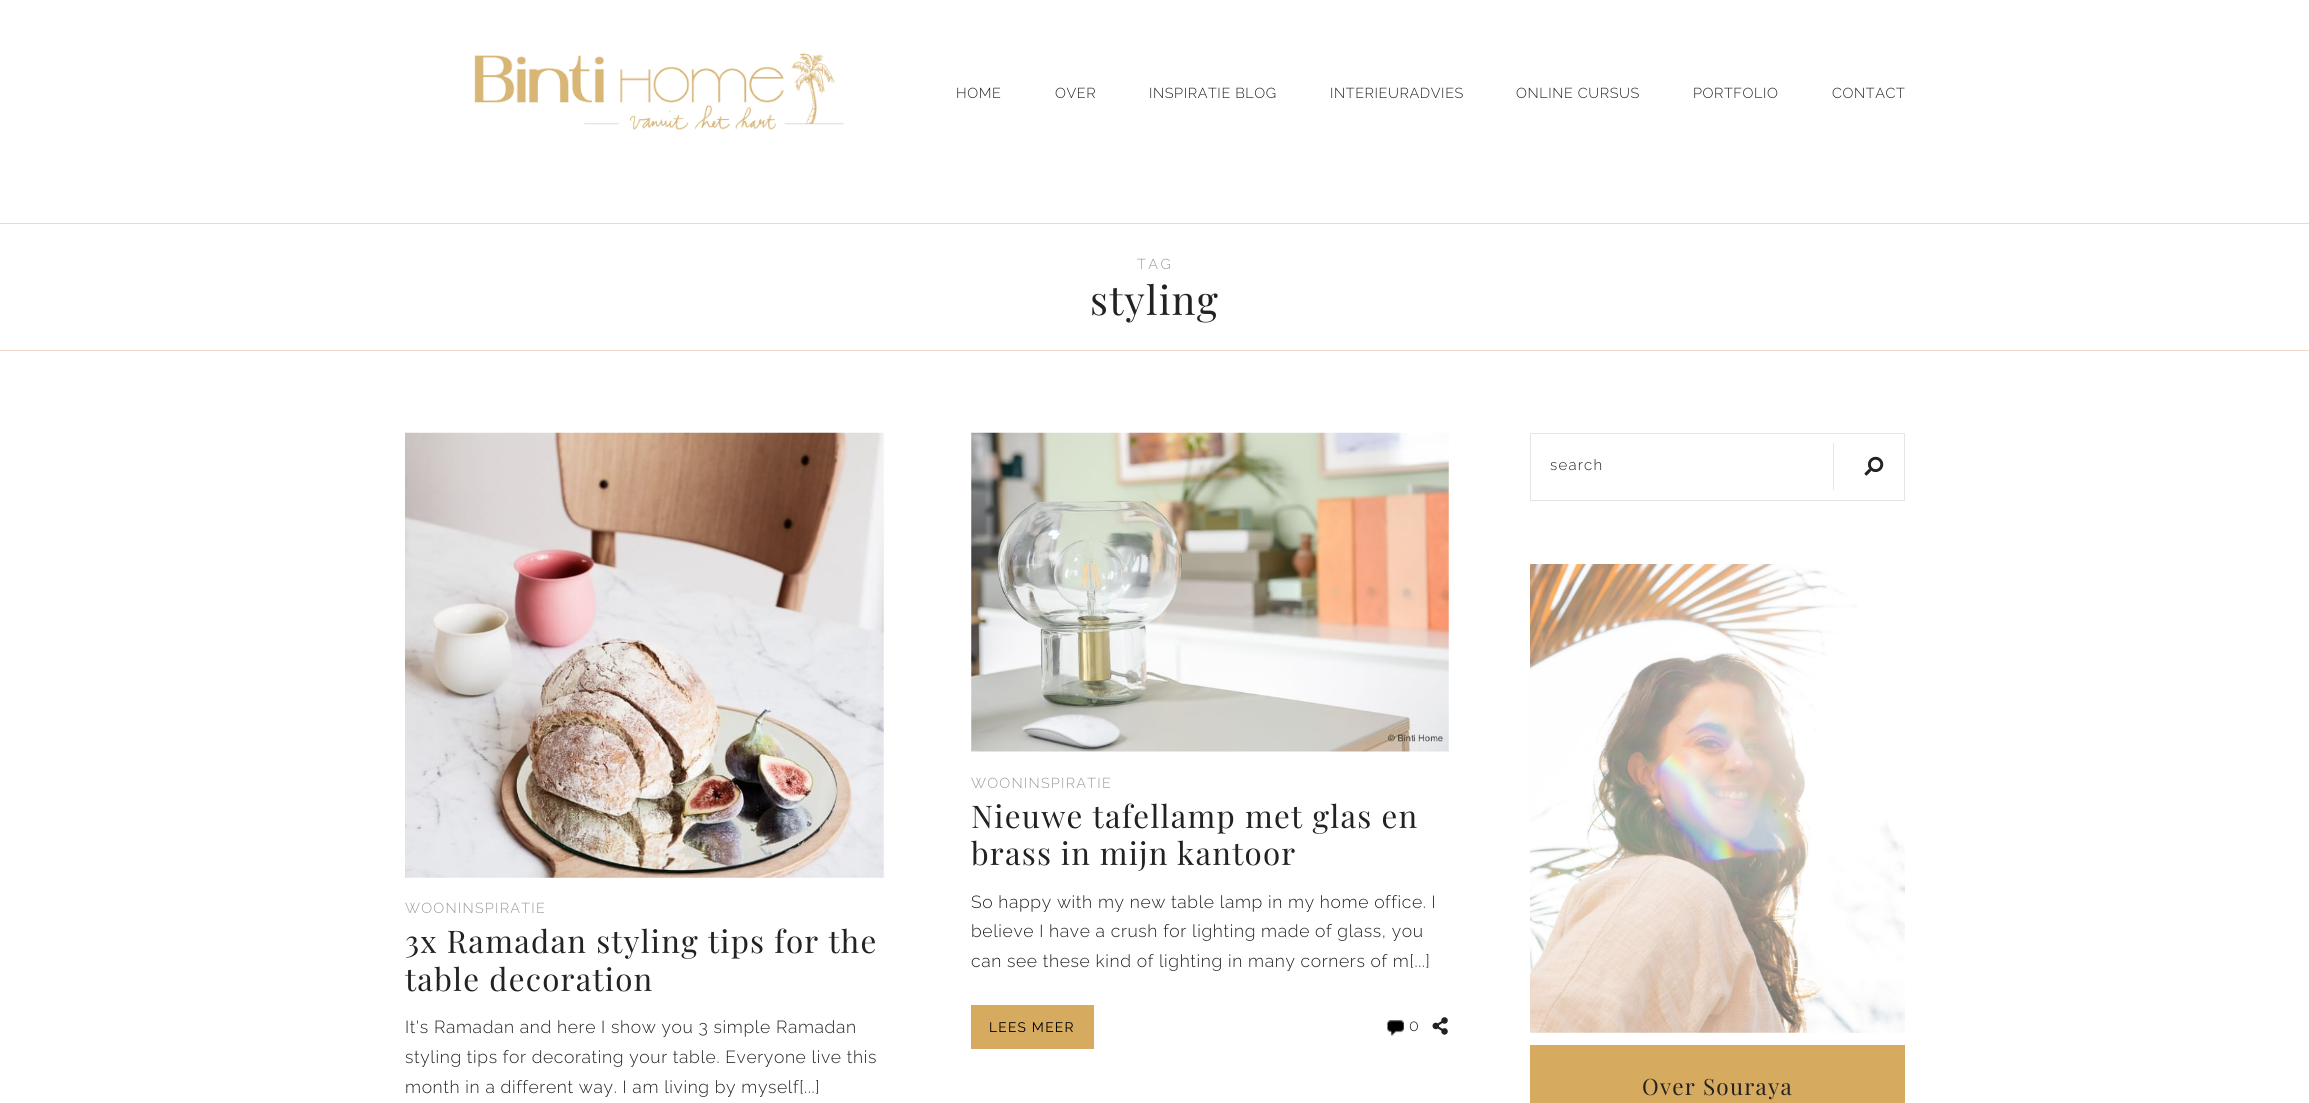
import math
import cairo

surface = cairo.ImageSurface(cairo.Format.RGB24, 2309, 1103)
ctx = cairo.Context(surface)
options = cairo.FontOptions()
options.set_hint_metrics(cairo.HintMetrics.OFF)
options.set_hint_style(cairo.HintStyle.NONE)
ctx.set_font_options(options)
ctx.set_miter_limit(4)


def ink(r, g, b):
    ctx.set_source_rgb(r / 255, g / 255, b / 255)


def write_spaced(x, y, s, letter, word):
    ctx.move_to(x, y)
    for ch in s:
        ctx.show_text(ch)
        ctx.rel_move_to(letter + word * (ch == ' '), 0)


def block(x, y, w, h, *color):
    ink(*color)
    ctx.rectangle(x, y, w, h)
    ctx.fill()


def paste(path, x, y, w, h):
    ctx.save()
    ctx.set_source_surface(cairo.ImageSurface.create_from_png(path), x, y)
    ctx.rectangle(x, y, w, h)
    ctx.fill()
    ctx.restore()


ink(255, 255, 255)
ctx.paint()
paste("pic1.png", 474, 53, 370, 77)
ctx.select_font_face("Raleway Light")
ctx.set_font_size(14.4)
ink(34, 34, 34)
write_spaced(956, 98, "HOME", 0.62, 0)
write_spaced(1055, 98, "OVER", 0.62, 0)
write_spaced(1149, 98, "INSPIRATIE BLOG", 0.62, 0)
write_spaced(1330, 98, "INTERIEURADVIES", 0.62, 0)
write_spaced(1516, 98, "ONLINE CURSUS", 0.62, 0)
write_spaced(1693, 98, "PORTFOLIO", 0.62, 0)
write_spaced(1832, 98, "CONTACT", 0.62, 0)
block(0, 223, 2309, 1, 237, 217, 203)
block(0, 350, 2309, 1, 237, 217, 203)
ink(153, 153, 153)
write_spaced(1137, 269, "TAG", 2.5, 0)
ctx.select_font_face("Playfair Display")
ctx.set_font_size(40)
ink(34, 34, 34)
write_spaced(1090, 315, "styling", 1.25, 0)
paste("pic2.png", 405, 432, 479, 446)
ctx.select_font_face("Raleway Light")
ctx.set_font_size(14.4)
ink(153, 153, 153)
write_spaced(405, 913, "WOONINSPIRATIE", 1.25, 0)
ctx.select_font_face("Playfair Display")
ctx.set_font_size(31.25)
ink(34, 34, 34)
write_spaced(405, 953, "3x Ramadan styling tips for the", 1.25, 0)
write_spaced(405, 991, "table decoration", 1.25, 0)
ctx.select_font_face("Raleway Light")
ctx.set_font_size(17.5)
write_spaced(405, 1033, "It's Ramadan and here I show you 3 simple Ramadan", 0.62, 0)
write_spaced(405, 1063, "styling tips for decorating your table. Everyone live this", 0.62, 0)
write_spaced(405, 1093, "month in a different way. I am living by myself[...]", 0.62, 0)
paste("pic3.png", 971, 432, 478, 320)
ctx.set_font_size(14.4)
ink(153, 153, 153)
write_spaced(971, 788, "WOONINSPIRATIE", 1.25, 0)
ctx.select_font_face("Playfair Display")
ctx.set_font_size(31.25)
ink(34, 34, 34)
write_spaced(971, 828, "Nieuwe tafellamp met glas en", 1.25, 0)
write_spaced(971, 865, "brass in mijn kantoor", 1.25, -0.5)
ctx.select_font_face("Raleway Light")
ctx.set_font_size(17.5)
write_spaced(971, 908, "So happy with my new table lamp in my home office. I", 0.62, 0)
write_spaced(971, 937, "believe I have a crush for lighting made of glass, you", 0.62, 0)
write_spaced(971, 967, "can see these kind of lighting in many corners of m[...]", 0.62, 0)
block(971, 1005, 123, 44, 214, 170, 95)
ctx.select_font_face("Raleway")
ctx.set_font_size(13.75)
ink(0, 0, 0)
write_spaced(989, 1032, "LEES MEER", 1.25, 0)
paste("pic4.png", 1387, 1020, 17, 17)
ctx.select_font_face("Raleway Light")
ctx.set_font_size(16)
ink(34, 34, 34)
write_spaced(1409, 1031, "0", 0.62, 0)
paste("pic5.png", 1432, 1017, 16, 18)
ctx.rectangle(1530.5, 433.5, 374, 67)
ink(229, 229, 229)
ctx.set_line_width(1)
ctx.stroke()
ctx.set_font_size(15)
ink(34, 34, 34)
write_spaced(1550, 470, "search", 1.25, 0)
paste("pic6.png", 1864, 456, 20, 20)
block(1833, 443, 1, 47, 229, 229, 229)
paste("pic7.png", 1530, 564, 375, 469)
block(1530, 1045, 375, 58, 214, 170, 95)
ctx.select_font_face("Playfair Display")
ctx.set_font_size(22.5)
ink(34, 34, 34)
write_spaced(1642, 1095, "Over Souraya", 1.25, 0)
surface.write_to_png("screenshot.png")
